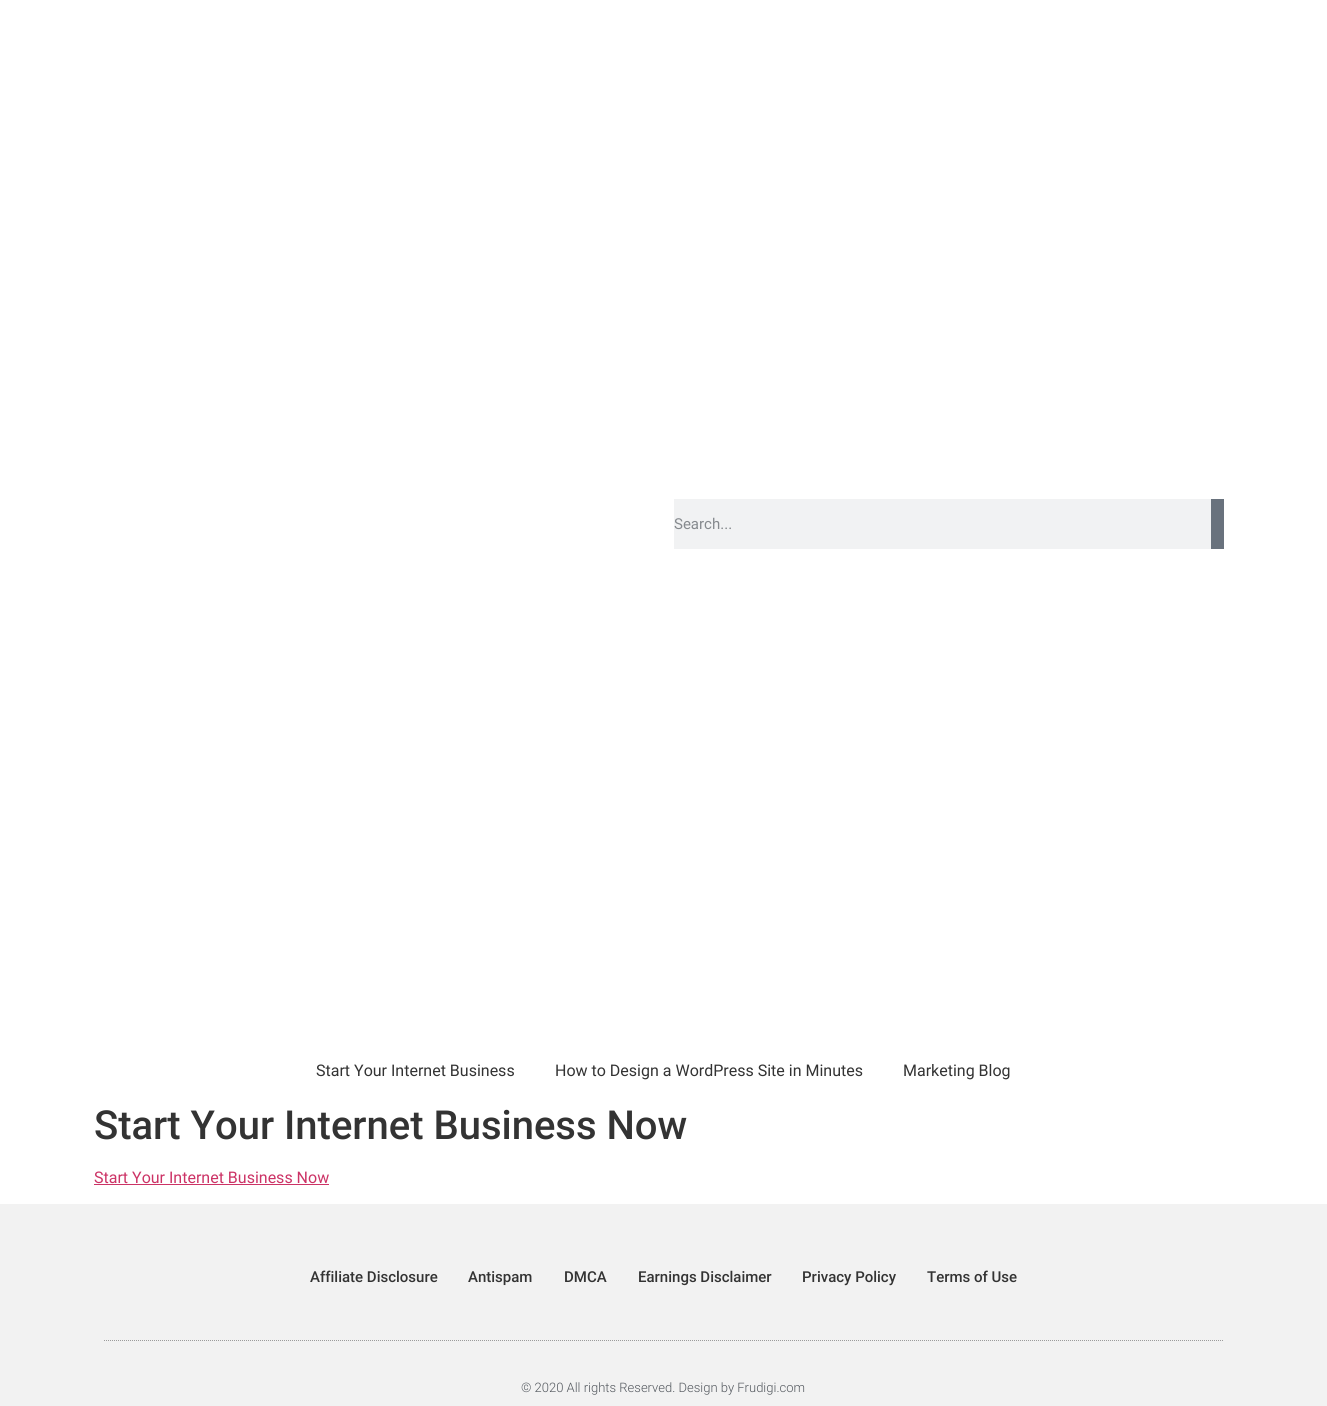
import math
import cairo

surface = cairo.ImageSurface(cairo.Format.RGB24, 1327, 1406)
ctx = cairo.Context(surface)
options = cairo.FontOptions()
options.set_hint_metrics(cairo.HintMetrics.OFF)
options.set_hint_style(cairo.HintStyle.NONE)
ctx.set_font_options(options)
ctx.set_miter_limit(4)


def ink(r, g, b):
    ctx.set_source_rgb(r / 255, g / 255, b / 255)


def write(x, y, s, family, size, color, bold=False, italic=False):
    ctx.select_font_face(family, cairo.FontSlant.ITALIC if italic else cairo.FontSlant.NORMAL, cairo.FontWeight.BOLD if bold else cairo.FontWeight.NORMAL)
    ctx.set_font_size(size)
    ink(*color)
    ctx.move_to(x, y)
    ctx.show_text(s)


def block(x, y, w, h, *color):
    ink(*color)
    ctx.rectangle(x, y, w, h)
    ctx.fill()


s1 = dict(family="Roboto", size=15, color=(134, 138, 142))
s2 = dict(family="Roboto", size=16, color=(51, 51, 51))
s3 = dict(family="Roboto Medium", size=40, color=(51, 51, 51))
s4 = dict(family="Roboto", size=16, color=(204, 51, 102))
s5 = dict(family="Roboto Medium", size=15, color=(51, 51, 51))
s6 = dict(family="Roboto Light", size=13, color=(84, 89, 95))

ink(255, 255, 255)
ctx.paint()
block(674, 499, 537, 50, 241, 242, 243)
write(674, 529, "Search...", **s1)
block(1211, 499, 13, 50, 105, 114, 125)
write(316, 1076, "Start Your Internet Business", **s2)
write(555, 1076, "How to Design a WordPress Site in Minutes", **s2)
write(903, 1076, "Marketing Blog", **s2)
write(94, 1139, "Start Your Internet Business Now", **s3)
write(94, 1183, "Start Your Internet Business Now", **s4)
block(94, 1184, 235, 1, 204, 51, 102)
block(0, 1204, 1327, 202, 242, 242, 242)
ctx.new_path()
ctx.move_to(104, 1340.5)
ctx.line_to(1224, 1340.5)
ink(155, 155, 155)
ctx.set_line_width(1)
ctx.set_dash([1, 1])
ctx.stroke()
write(310, 1282, "Affiliate Disclosure", **s5)
write(468, 1282, "Antispam", **s5)
write(564, 1282, "DMCA", **s5)
write(638, 1282, "Earnings Disclaimer", **s5)
write(802, 1282, "Privacy Policy", **s5)
write(927, 1282, "Terms of Use", **s5)
write(521, 1392, "© 2020 All rights Reserved. Design by Frudigi.com", **s6)
surface.write_to_png("screenshot.png")
